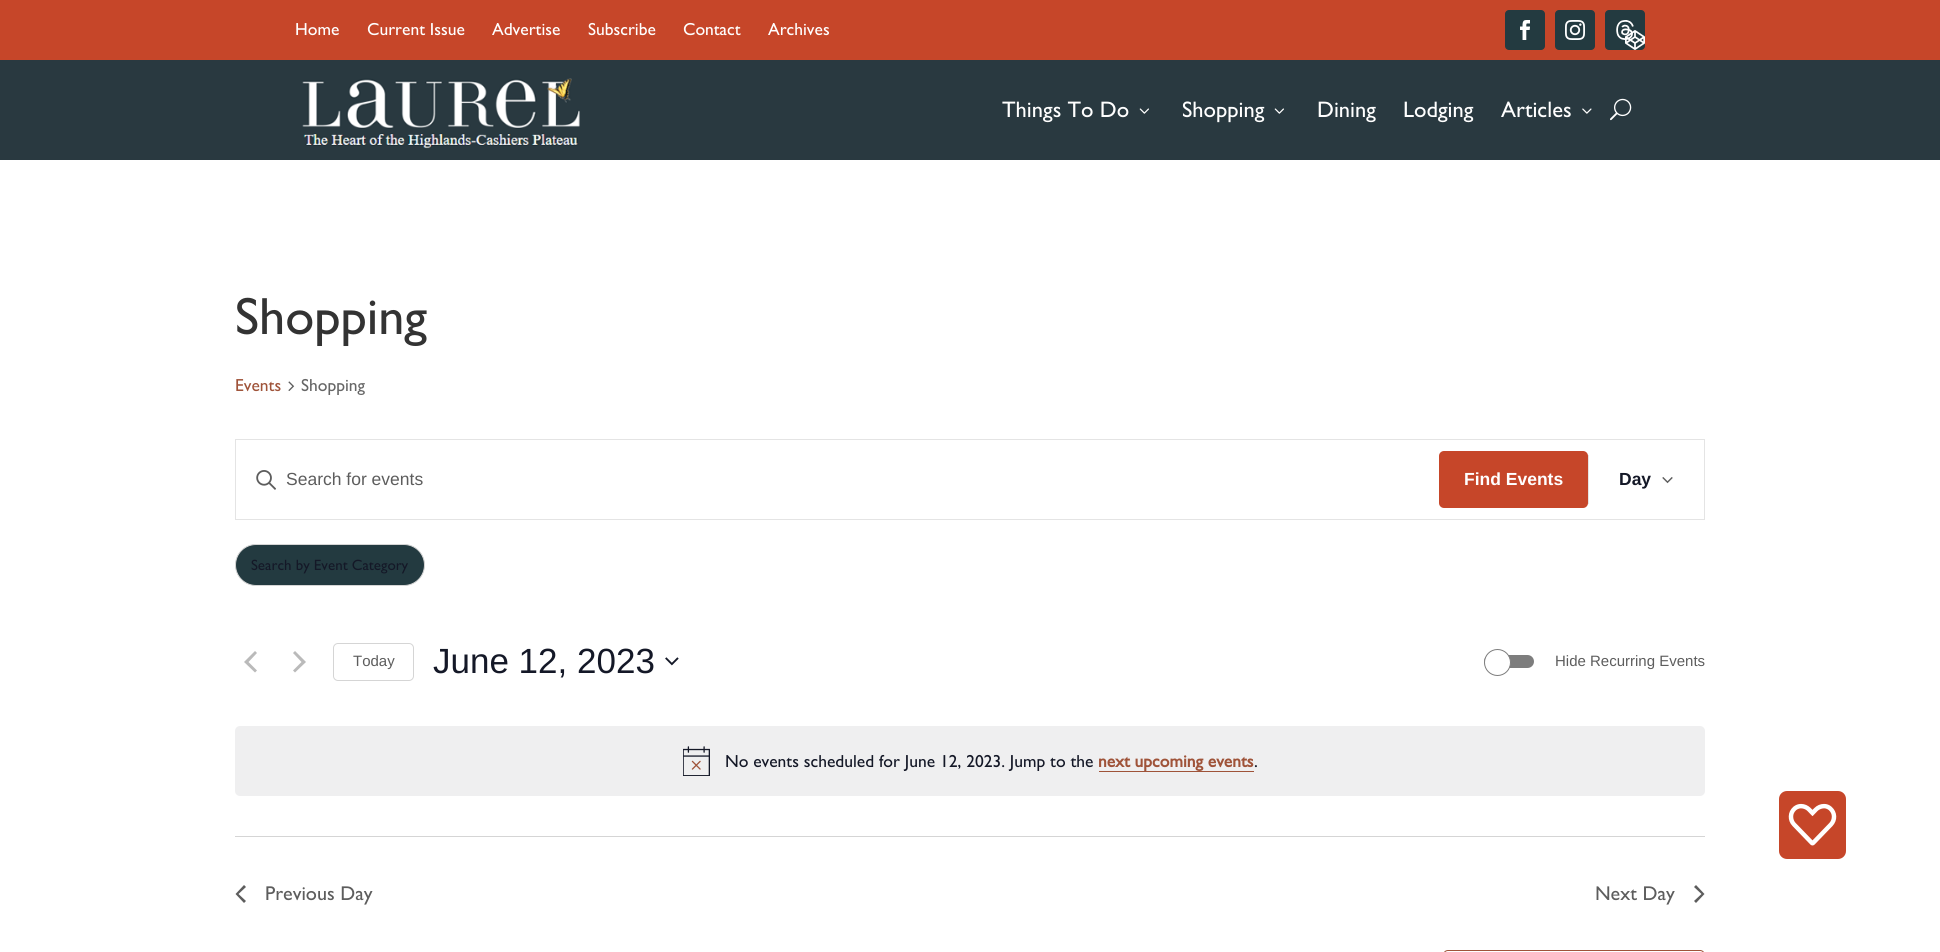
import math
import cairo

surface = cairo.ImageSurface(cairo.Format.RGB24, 1940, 952)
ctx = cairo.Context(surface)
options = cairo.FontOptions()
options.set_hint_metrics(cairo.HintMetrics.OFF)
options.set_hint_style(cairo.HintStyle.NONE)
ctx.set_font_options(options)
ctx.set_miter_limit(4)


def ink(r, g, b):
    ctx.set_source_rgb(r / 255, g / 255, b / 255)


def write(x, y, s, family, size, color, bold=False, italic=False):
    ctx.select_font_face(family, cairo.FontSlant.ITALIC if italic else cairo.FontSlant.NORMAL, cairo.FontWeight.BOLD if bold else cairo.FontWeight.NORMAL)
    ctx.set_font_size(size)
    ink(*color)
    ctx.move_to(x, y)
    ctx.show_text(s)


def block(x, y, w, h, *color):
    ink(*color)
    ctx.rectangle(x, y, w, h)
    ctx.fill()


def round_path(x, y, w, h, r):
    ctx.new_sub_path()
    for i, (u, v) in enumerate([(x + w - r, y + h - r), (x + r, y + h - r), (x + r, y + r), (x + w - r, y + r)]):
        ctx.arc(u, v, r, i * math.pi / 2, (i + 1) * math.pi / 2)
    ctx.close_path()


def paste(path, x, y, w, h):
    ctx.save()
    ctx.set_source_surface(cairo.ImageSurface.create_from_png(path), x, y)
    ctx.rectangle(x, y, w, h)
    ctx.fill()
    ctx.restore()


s1 = dict(family="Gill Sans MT", size=17.5, color=(255, 255, 255))
s2 = dict(family="Gill Sans MT", size=22.5, color=(255, 255, 255))
s3 = dict(family="Gill Sans MT", size=52.5, color=(51, 51, 51))
s4 = dict(family="Gill Sans MT", size=17.5, color=(159, 83, 57))
s5 = dict(family="Gill Sans MT", size=17.5, color=(102, 102, 102))
s6 = dict(family="Liberation Sans", size=17.5, color=(93, 93, 93))
s7 = dict(family="Liberation Sans", size=17.5, color=(255, 255, 255), bold=True)
s8 = dict(family="Liberation Sans", size=17.5, color=(20, 24, 39), bold=True)
s9 = dict(family="Gill Sans MT", size=15, color=(20, 24, 39))
s10 = dict(family="Liberation Sans", size=15, color=(93, 93, 93))
s11 = dict(family="Liberation Sans", size=35, color=(20, 24, 39))
s12 = dict(family="Gill Sans MT", size=17.5, color=(20, 24, 39))
s13 = dict(family="Gill Sans MT", size=17.5, color=(159, 83, 57), bold=True)
s14 = dict(family="Gill Sans MT", size=20, color=(93, 93, 93))

ink(255, 255, 255)
ctx.paint()
block(0, 0, 1940, 60, 198, 70, 41)
write(295, 35, "Home", **s1)
write(367, 35, "Current Issue", **s1)
write(492, 35, "Advertise", **s1)
write(588, 35, "Subscribe", **s1)
write(683, 35, "Contact", **s1)
write(768, 35, "Archives", **s1)
ink(35, 58, 64)
round_path(1505, 10, 40, 40, 4)
ctx.fill()
paste("pic1.png", 1520, 20, 10, 20)
round_path(1555, 10, 40, 40, 4)
ctx.fill()
paste("pic2.png", 1565, 20, 20, 20)
round_path(1605, 10, 40, 40, 4)
ctx.fill()
paste("pic3.png", 1616, 20, 18, 20)
paste("pic4.png", 1625, 30, 20, 20)
block(0, 60, 1940, 100, 41, 57, 64)
paste("pic5.png", 302, 78, 278, 71)
write(1002, 117, "Things To Do", **s2)
paste("pic6.png", 1139, 108, 10, 6)
write(1182, 117, "Shopping", **s2)
paste("pic6.png", 1274, 108, 10, 6)
write(1317, 117, "Dining", **s2)
write(1403, 117, "Lodging", **s2)
write(1501, 117, "Articles", **s2)
paste("pic7.png", 1582, 108, 10, 6)
paste("pic8.png", 1610, 98, 22, 23)
write(235, 334, "Shopping", **s3)
write(235, 391, "Events", **s4)
paste("pic9.png", 288, 381, 7, 10)
write(301, 391, "Shopping", **s5)
ctx.rectangle(235.5, 439.5, 1469, 80)
ink(228, 228, 228)
ctx.set_line_width(1)
ctx.stroke()
paste("pic10.png", 256, 470, 20, 20)
write(286, 485, "Search for events", **s6)
ink(198, 70, 41)
round_path(1439, 451, 149, 57, 5)
ctx.fill()
write(1464, 485, "Find Events", **s7)
block(1588, 455, 1, 49, 228, 228, 228)
write(1619, 485, "Day", **s8)
paste("pic11.png", 1662, 477, 11, 7)
ink(35, 58, 64)
round_path(235.5, 544.5, 189, 41, 20.5)
ctx.fill_preserve()
ink(213, 213, 213)
ctx.stroke()
write(251, 570, "Search by Event Category", **s9)
ink(186, 186, 186)
ctx.new_path()
ctx.move_to(257, 670.5)
ctx.line_to(255, 672.5)
ctx.line_to(244, 662)
ctx.line_to(255, 651)
ctx.line_to(257, 653)
ctx.line_to(248.5, 662)
ctx.close_path()
ctx.move_to(293, 653)
ctx.line_to(295, 651)
ctx.line_to(306, 662)
ctx.line_to(295, 672.5)
ctx.line_to(293, 670.5)
ctx.line_to(301.5, 662)
ctx.close_path()
ctx.fill()
round_path(333.5, 643.5, 80, 37, 4.5)
ink(213, 213, 213)
ctx.stroke()
write(353, 666, "Today", **s10)
write(433, 673, "June 12, 2023", **s11)
paste("pic12.png", 665, 657, 14, 9)
ink(125, 125, 125)
round_path(1484, 655, 50, 13, 6.5)
ctx.fill()
ink(255, 255, 255)
ctx.arc(1497.5, 662.5, 13, 0, 2 * math.pi)
ctx.fill_preserve()
ink(125, 125, 125)
ctx.stroke()
write(1555, 666, "Hide Recurring Events", **s10)
ink(239, 239, 240)
round_path(235, 726, 1470, 70, 5)
ctx.fill()
paste("pic13.png", 683, 746, 27, 30)
write(725, 767, "No events scheduled for June 12, 2023. Jump to the", **s12)
write(1098, 767, "next upcoming events", **s13)
block(1099, 771, 155, 1, 159, 83, 57)
write(1254, 767, ".", **s12)
block(235, 836, 1470, 1, 213, 213, 213)
ink(93, 93, 93)
ctx.new_path()
ctx.move_to(246, 901)
ctx.line_to(244, 903)
ctx.line_to(235.5, 894)
ctx.line_to(244, 885)
ctx.line_to(246, 887)
ctx.line_to(238.5, 894)
ctx.close_path()
ctx.fill()
write(265, 900, "Previous Day", **s14)
write(1595, 900, "Next Day", **s14)
ctx.new_path()
ctx.move_to(1694, 887)
ctx.line_to(1696, 885)
ctx.line_to(1704.5, 894)
ctx.line_to(1696, 903)
ctx.line_to(1694, 901)
ctx.line_to(1701.5, 894)
ctx.close_path()
ctx.fill()
round_path(1443.5, 950.5, 261, 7, 4.5)
ink(159, 83, 57)
ctx.stroke()
ink(198, 70, 41)
round_path(1779, 791, 67, 68, 8)
ctx.fill()
paste("pic14.png", 1788, 803, 49, 43)
block(1812, 816, 1, 1, 199, 73, 44)
surface.write_to_png("screenshot.png")
